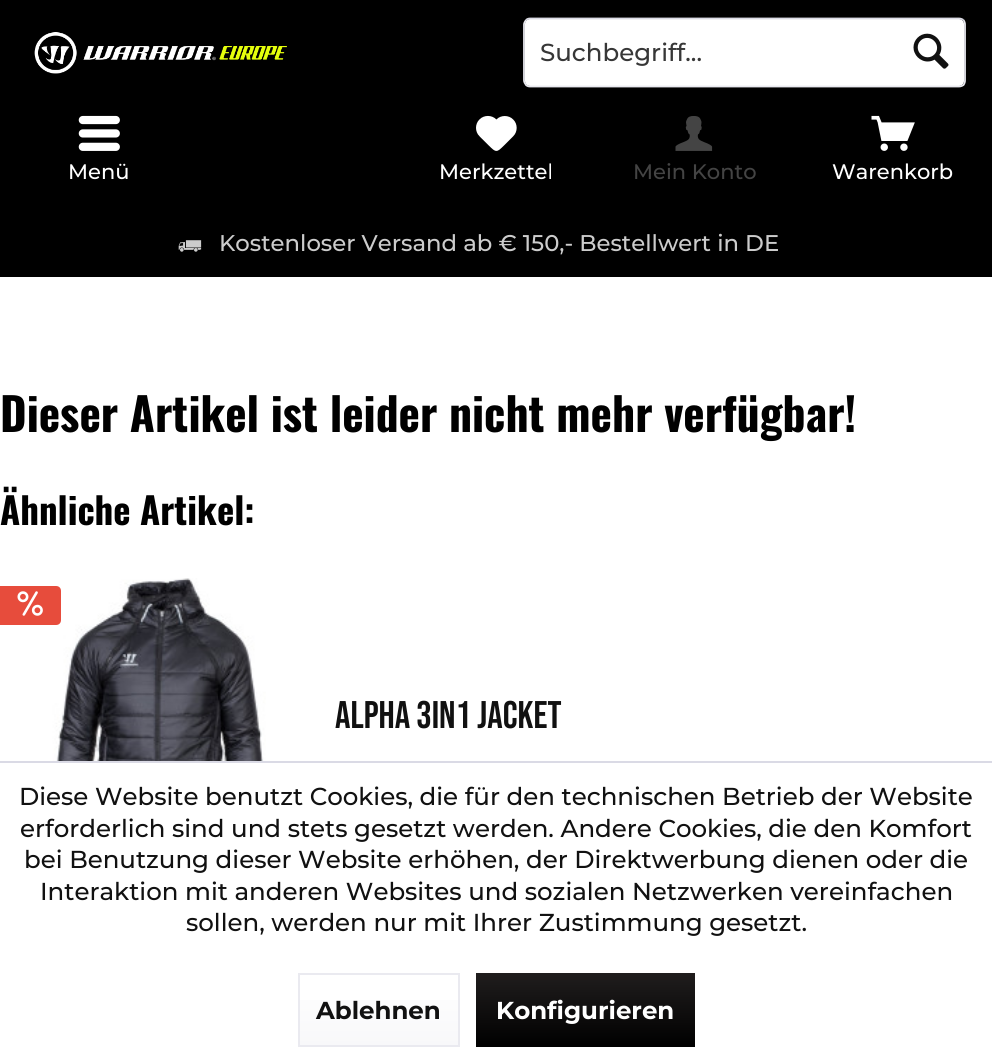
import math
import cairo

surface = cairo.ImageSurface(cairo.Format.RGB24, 992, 1063)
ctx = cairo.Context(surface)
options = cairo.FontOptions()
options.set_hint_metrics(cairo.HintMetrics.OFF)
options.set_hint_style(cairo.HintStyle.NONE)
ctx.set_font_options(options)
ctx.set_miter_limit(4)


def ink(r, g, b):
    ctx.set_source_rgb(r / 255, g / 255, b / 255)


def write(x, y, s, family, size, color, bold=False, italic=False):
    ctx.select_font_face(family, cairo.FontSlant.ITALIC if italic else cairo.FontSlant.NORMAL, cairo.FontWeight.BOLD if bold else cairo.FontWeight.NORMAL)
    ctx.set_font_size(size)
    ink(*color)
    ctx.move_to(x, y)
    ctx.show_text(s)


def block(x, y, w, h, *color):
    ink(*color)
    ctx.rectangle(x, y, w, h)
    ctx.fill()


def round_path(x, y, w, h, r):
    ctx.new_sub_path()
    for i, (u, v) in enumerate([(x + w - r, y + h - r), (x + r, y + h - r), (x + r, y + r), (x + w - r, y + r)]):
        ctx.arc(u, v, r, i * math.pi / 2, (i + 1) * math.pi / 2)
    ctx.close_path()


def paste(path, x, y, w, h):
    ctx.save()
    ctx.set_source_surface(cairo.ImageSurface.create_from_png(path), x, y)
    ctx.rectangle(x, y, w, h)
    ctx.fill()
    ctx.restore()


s1 = dict(family="Montserrat Medium", size=24.5, color=(55, 55, 55))
s2 = dict(family="Montserrat Medium", size=21, color=(255, 255, 255))
s3 = dict(family="Montserrat Medium", size=21, color=(68, 68, 68))
s4 = dict(family="Montserrat Medium", size=22.75, color=(204, 204, 204))
s5 = dict(family="Oswald", size=45.5, color=(0, 0, 0), bold=True)
s6 = dict(family="Oswald", size=36.75, color=(0, 0, 0), bold=True)
s7 = dict(family="Bebas Neue", size=38.5, color=(17, 17, 17))
s8 = dict(family="Montserrat Medium", size=24.5, color=(17, 17, 17))
s9 = dict(family="Montserrat", size=24.5, color=(17, 17, 17), bold=True)
s10 = dict(family="Montserrat", size=24.5, color=(255, 255, 255), bold=True)

ink(255, 255, 255)
ctx.paint()
block(0, 0, 992, 277, 0, 0, 0)
ink(255, 255, 255)
round_path(525, 19, 439, 67, 5)
ctx.fill()
ctx.new_path()
ctx.move_to(526, 20)
ctx.curve_to(527, 19, 528.5, 18.5, 530, 18.5)
ctx.line_to(959, 18.5)
ctx.curve_to(960.5, 18.5, 962, 19, 963.5, 20)
ink(219, 219, 229)
ctx.set_line_width(1.8)
ctx.stroke()
ctx.new_path()
ctx.move_to(963.5, 20)
ctx.curve_to(964.5, 21.5, 965, 23, 965, 24.5)
ctx.line_to(965, 80.5)
ctx.curve_to(965, 82, 964.5, 83.5, 963.5, 85)
ctx.curve_to(962, 86, 960.5, 86.5, 959, 86.5)
ctx.line_to(530, 86.5)
ctx.curve_to(528.5, 86.5, 527, 86, 526, 85)
ctx.curve_to(525, 83.5, 524, 82, 524, 80.5)
ctx.line_to(524, 24.5)
ctx.curve_to(524, 23, 525, 21.5, 526, 20)
ink(234, 234, 240)
ctx.stroke()
write(540, 61, "Suchbegriff...", **s1)
paste("pic1.png", 913, 33, 36, 36)
paste("pic2.png", 34, 32, 253, 42)
paste("pic3.png", 78, 115, 42, 36)
write(68, 179, "Menü", **s2)
paste("pic4.png", 476, 115, 41, 36)
write(439, 179, "Merkzettel", **s2)
paste("pic5.png", 675, 116, 38, 35)
write(633, 179, "Mein Konto", **s3)
paste("pic6.png", 871, 115, 44, 36)
write(832, 179, "Warenkorb", **s2)
paste("pic7.png", 178, 240, 24, 12)
write(219, 251, "Kostenloser Versand ab € 150,- Bestellwert in DE", **s4)
write(0, 432, "Dieser Artikel ist leider nicht mehr verfügbar!", **s5)
write(0, 525, "Ähnliche Artikel:", **s6)
paste("pic9.png", 50, 578, 218, 183)
ink(231, 76, 60)
ctx.new_path()
ctx.move_to(0, 586)
ctx.line_to(56, 586)
ctx.curve_to(59, 586, 61, 588, 61, 591)
ctx.line_to(61, 620)
ctx.curve_to(61, 623, 59, 625, 56, 625)
ctx.line_to(0, 625)
ctx.close_path()
ctx.fill()
paste("pic8.png", 17, 591, 26, 25)
write(335, 728, "Alpha 3in1 Jacket", **s7)
block(0, 761, 992, 2, 218, 218, 229)
write(19, 805, "Diese Website benutzt Cookies, die für den technischen Betrieb der Website", **s8)
write(20, 837, "erforderlich sind und stets gesetzt werden. Andere Cookies, die den Komfort", **s8)
write(24, 868, "bei Benutzung dieser Website erhöhen, der Direktwerbung dienen oder die", **s8)
write(40, 900, "Interaktion mit anderen Websites und sozialen Netzwerken vereinfachen", **s8)
write(186, 931, "sollen, werden nur mit Ihrer Zustimmung gesetzt.", **s8)
gradient = cairo.LinearGradient(379, 975, 379, 1045)
gradient.add_color_stop_rgba(0, 1, 1, 1, 1)
gradient.add_color_stop_rgba(1, 0.973, 0.973, 0.98, 1)
ctx.set_source(gradient)
ctx.rectangle(300, 1000, 158, 45)
ctx.fill()
ctx.rectangle(299, 974, 160, 72)
ink(234, 234, 240)
ctx.set_line_width(2)
ctx.stroke()
write(316, 1019, "Ablehnen", **s9)
gradient = cairo.LinearGradient(585, 973, 585, 1047)
gradient.add_color_stop_rgba(0, 0.125, 0.114, 0.114, 1)
gradient.add_color_stop_rgba(1, 0, 0, 0, 1)
ctx.set_source(gradient)
ctx.rectangle(476, 973, 219, 74)
ctx.fill()
write(496, 1019, "Konfigurieren", **s10)
surface.write_to_png("screenshot.png")
